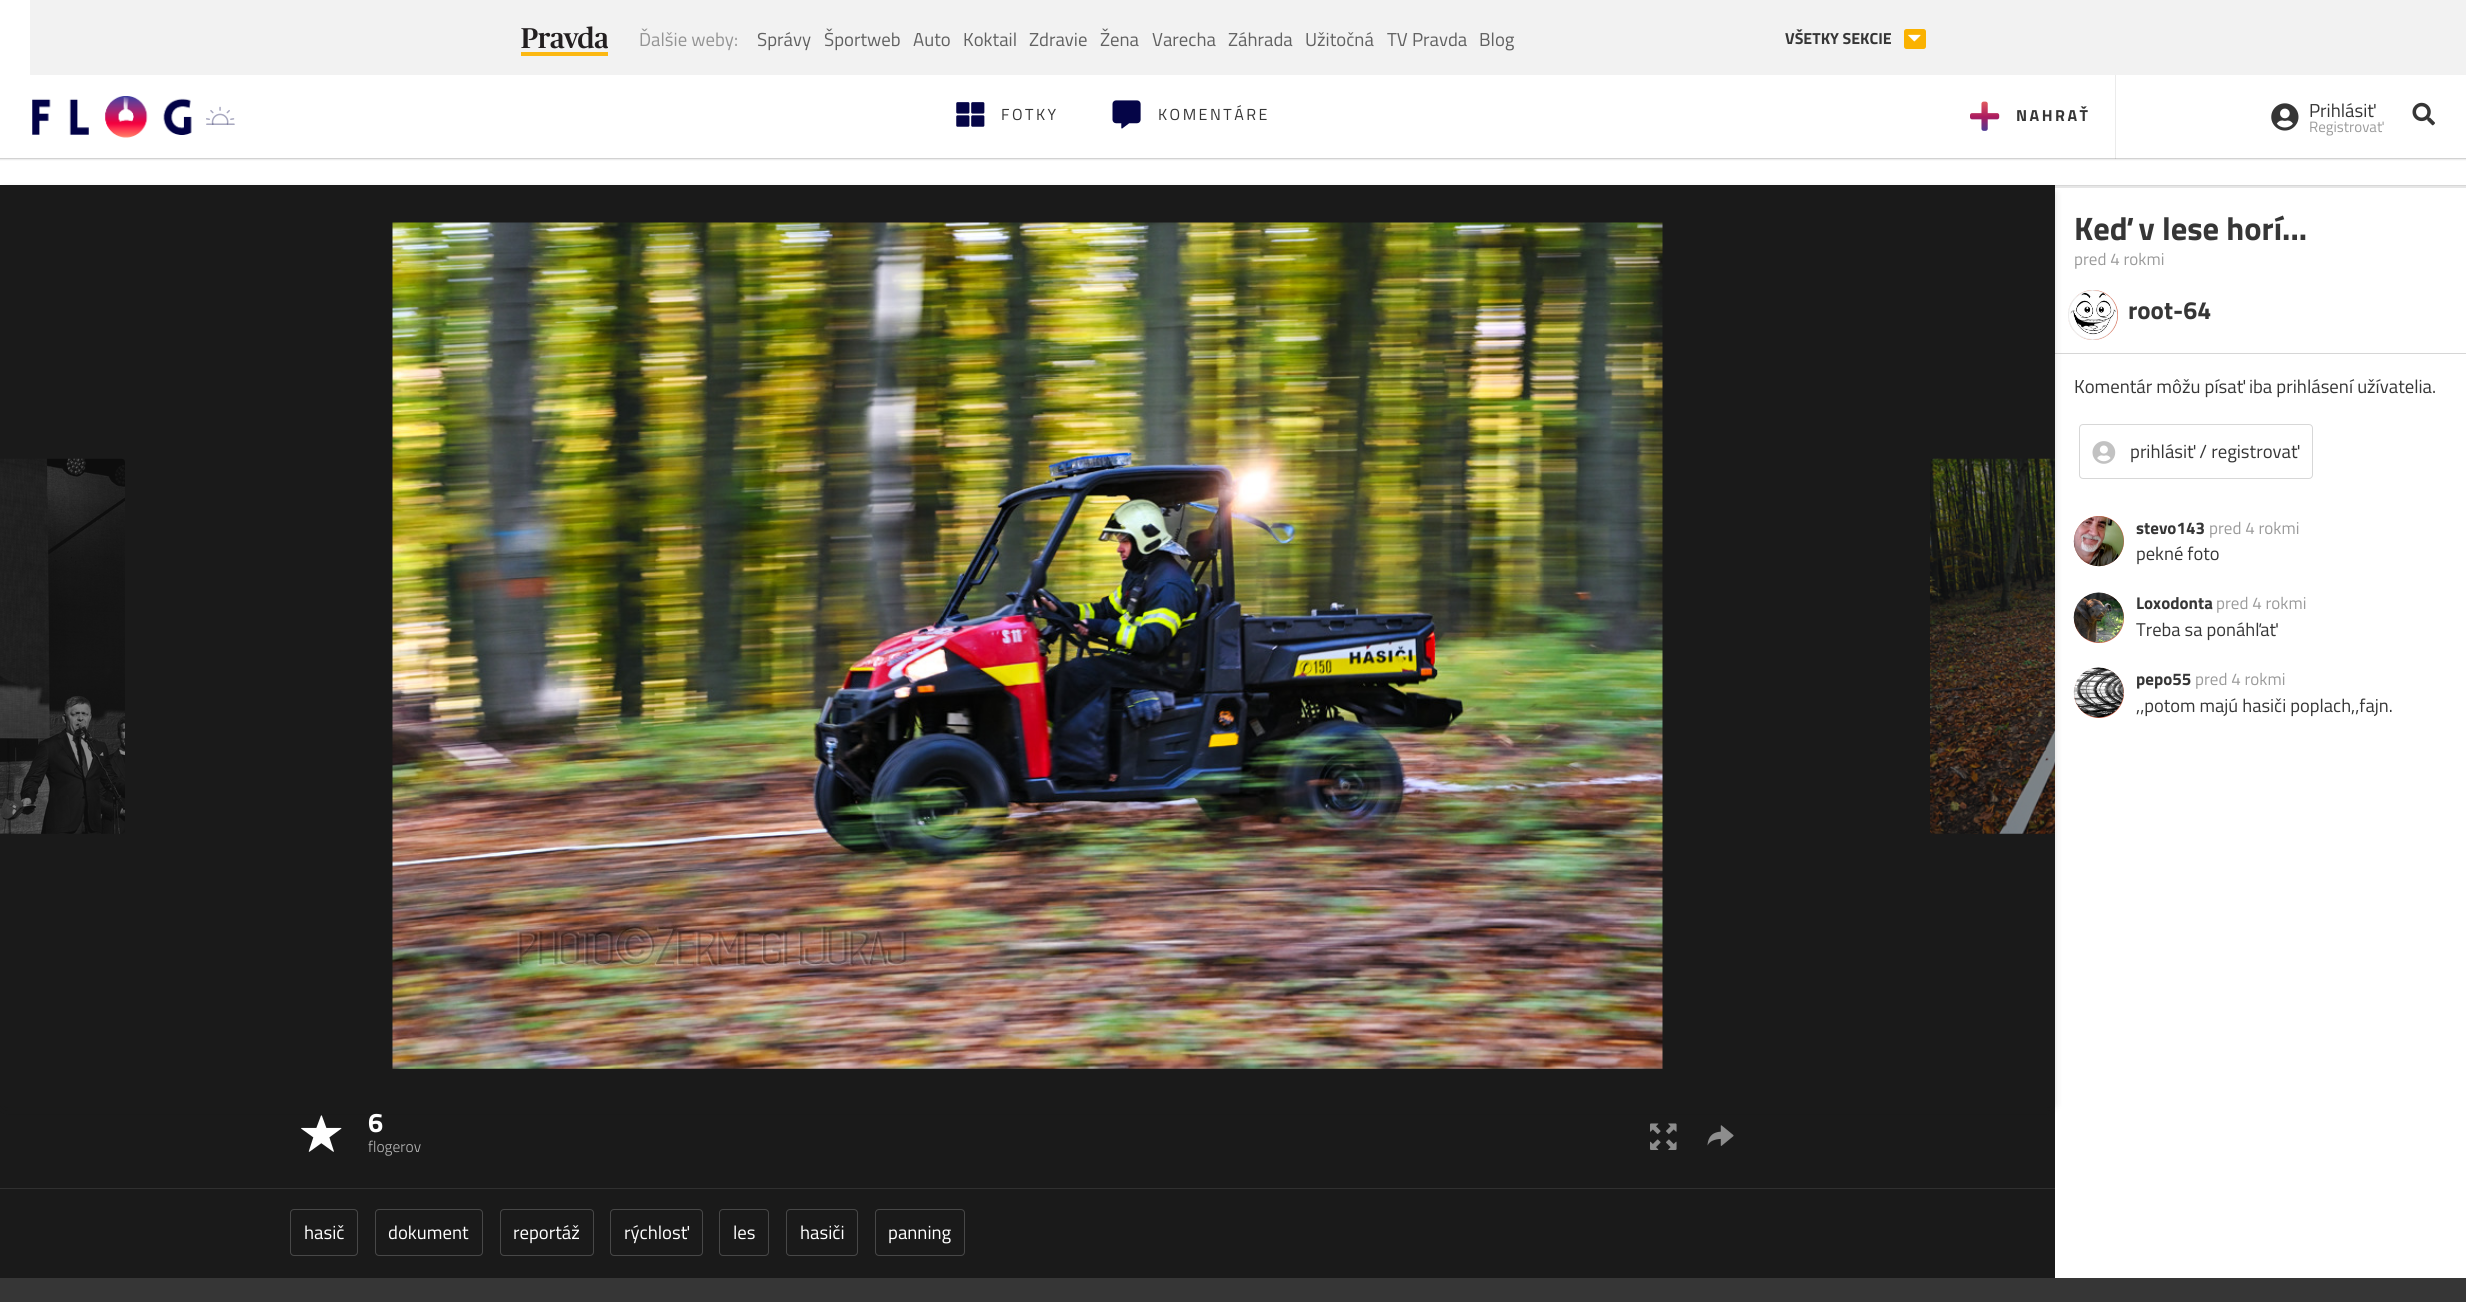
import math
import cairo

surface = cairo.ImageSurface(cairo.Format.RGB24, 2466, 1302)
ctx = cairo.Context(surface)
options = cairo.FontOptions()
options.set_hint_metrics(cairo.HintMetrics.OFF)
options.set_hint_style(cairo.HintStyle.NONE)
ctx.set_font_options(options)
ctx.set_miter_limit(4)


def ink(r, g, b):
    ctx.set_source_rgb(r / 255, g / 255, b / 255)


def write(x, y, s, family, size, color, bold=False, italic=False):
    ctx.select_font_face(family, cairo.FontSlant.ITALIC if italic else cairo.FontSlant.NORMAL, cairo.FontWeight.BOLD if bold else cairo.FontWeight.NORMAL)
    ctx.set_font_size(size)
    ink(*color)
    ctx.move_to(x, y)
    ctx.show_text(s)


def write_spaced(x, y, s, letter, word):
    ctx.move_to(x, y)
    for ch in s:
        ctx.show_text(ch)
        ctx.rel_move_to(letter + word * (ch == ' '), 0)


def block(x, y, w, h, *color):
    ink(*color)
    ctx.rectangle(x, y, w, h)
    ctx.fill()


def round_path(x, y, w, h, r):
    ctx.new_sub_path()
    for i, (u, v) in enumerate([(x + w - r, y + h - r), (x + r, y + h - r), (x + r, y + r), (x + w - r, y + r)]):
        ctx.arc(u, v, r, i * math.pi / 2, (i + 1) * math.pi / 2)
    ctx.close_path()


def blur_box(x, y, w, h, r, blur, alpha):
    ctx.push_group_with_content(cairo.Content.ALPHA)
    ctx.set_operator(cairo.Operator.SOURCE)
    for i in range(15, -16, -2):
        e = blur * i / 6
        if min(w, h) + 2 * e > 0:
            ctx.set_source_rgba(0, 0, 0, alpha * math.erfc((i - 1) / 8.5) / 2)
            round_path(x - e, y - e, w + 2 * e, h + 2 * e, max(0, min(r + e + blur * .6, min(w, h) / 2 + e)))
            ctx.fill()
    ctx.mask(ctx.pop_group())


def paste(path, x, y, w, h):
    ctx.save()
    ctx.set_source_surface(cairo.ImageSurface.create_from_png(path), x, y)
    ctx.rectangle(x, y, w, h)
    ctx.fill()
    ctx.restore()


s1 = dict(family="Titillium Web", size=18.75, color=(148, 148, 148))
s2 = dict(family="Titillium Web", size=18.75, color=(97, 97, 97))
s3 = dict(family="Titillium Web", size=16, color=(54, 54, 54), bold=True)
s4 = dict(family="Titillium Web", size=18.75, color=(54, 54, 54))
s5 = dict(family="Titillium Web", size=15, color=(155, 155, 155))
s6 = dict(family="Titillium Web", size=32.5, color=(54, 54, 54), bold=True)
s7 = dict(family="Titillium Web", size=17, color=(155, 155, 155))
s8 = dict(family="Titillium Web", size=25, color=(54, 54, 54), bold=True)
s9 = dict(family="Titillium Web", size=17, color=(54, 54, 54), bold=True)
s10 = dict(family="Titillium Web", size=18.5, color=(54, 54, 54))
s11 = dict(family="Titillium Web", size=27, color=(255, 255, 255), bold=True)
s12 = dict(family="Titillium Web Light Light", size=15.5, color=(186, 186, 186))
s13 = dict(family="Titillium Web", size=18.75, color=(255, 255, 255))

ink(255, 255, 255)
ctx.paint()
block(30, 0, 2436, 75, 242, 242, 242)
paste("pic1.png", 521, 26, 87, 30)
write(639, 46, "Ďalšie weby:", **s1)
write(757, 46, "Správy", **s2)
write(824, 46, "Športweb", **s2)
write(913, 46, "Auto", **s2)
write(963, 46, "Koktail", **s2)
write(1029, 46, "Zdravie", **s2)
write(1100, 46, "Žena", **s2)
write(1152, 46, "Varecha", **s2)
write(1228, 46, "Záhrada", **s2)
write(1305, 46, "Užitočná", **s2)
write(1387, 46, "TV Pravda", **s2)
write(1479, 46, "Blog", **s2)
write(1785, 44, "VŠETKY SEKCIE", **s3)
ink(250, 178, 1)
round_path(1904, 29, 22, 20, 2.5)
ctx.fill()
paste("pic2.png", 1908, 34, 13, 8)
paste("pic3.png", 32, 96, 160, 42)
paste("pic5.png", 123, 101, 5, 9)
paste("pic4.png", 123, 97, 6, 13)
paste("pic6.png", 206, 106, 29, 19)
paste("pic7.png", 956, 102, 29, 25)
ctx.select_font_face("Titillium Web")
ink(54, 54, 54)
write_spaced(1001, 120, "FOTKY", 2.5, 0)
paste("pic8.png", 1112, 100, 29, 29)
write_spaced(1158, 120, "KOMENTÁRE", 2.5, 0)
block(2115, 75, 1, 84, 235, 235, 235)
paste("pic9.png", 1970, 101, 30, 30)
ctx.select_font_face("Titillium Web", cairo.FontSlant.NORMAL, cairo.FontWeight.BOLD)
ink(54, 54, 54)
write_spaced(2016, 121, "NAHRAŤ", 2.5, 0)
paste("pic10.png", 2271, 103, 28, 28)
write(2309, 117, "Prihlásiť", **s4)
write(2309, 132, "Registrovať", **s5)
paste("pic11.png", 2412, 102, 23, 24)
ink(0, 0, 0)
blur_box(-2, 159, 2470, 1, 0, 0.5, 0.1)
ctx.set_source_rgba(0.212, 0.212, 0.212, 0.2)
ctx.rectangle(0, 158, 2466, 1)
ctx.fill()
ctx.save()
ctx.rectangle(1, 186, 2465, 5)
ctx.clip()
ink(230, 230, 230)
ctx.set_fill_rule(cairo.FillRule.EVEN_ODD)
ctx.new_path()
ctx.move_to(-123, 62)
ctx.line_to(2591, 62)
ctx.line_to(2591, 315)
ctx.line_to(-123, 315)
ctx.close_path()
ctx.move_to(2, 188)
ctx.line_to(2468, 188)
ctx.line_to(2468, 192)
ctx.line_to(2, 192)
ctx.close_path()
ctx.fill()
ctx.restore()
block(2055, 185, 411, 1, 215, 215, 215)
write(2074, 240, "Keď v lese horí...", **s6)
write(2074, 265, "pred 4 rokmi", **s7)
ink(233, 107, 77)
ctx.new_path()
ctx.arc(2093, 315, 25, 0, 2 * math.pi)
ctx.fill()
paste("pic12.png", 2068, 290, 50, 50)
ctx.arc(2093, 315, 24.5, 0, 2 * math.pi)
ctx.set_source_rgba(0.212, 0.212, 0.212, 0.1)
ctx.set_line_width(1)
ctx.stroke()
write(2128, 319, "root-64", **s8)
block(0, 185, 2055, 1093, 26, 26, 26)
ctx.save()
ctx.set_fill_rule(cairo.FillRule.EVEN_ODD)
ctx.new_path()
ctx.move_to(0, 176)
ctx.line_to(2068, 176)
ctx.line_to(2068, 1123)
ctx.line_to(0, 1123)
ctx.close_path()
ctx.move_to(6, 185)
ctx.line_to(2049, 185)
ctx.curve_to(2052.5, 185, 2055, 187.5, 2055, 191)
ctx.line_to(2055, 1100)
ctx.curve_to(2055, 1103.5, 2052.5, 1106, 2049, 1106)
ctx.line_to(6, 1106)
ctx.curve_to(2.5, 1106, 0, 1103.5, 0, 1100)
ctx.line_to(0, 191)
ctx.curve_to(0, 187.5, 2.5, 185, 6, 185)
ctx.close_path()
ctx.clip()
ink(23, 23, 22)
blur_box(0, 189, 2055, 921, 6, 4, 0.15)
ctx.restore()
ctx.set_source_rgba(0.212, 0.212, 0.212, 0.2)
ctx.rectangle(2055, 353, 411, 1)
ctx.fill()
write(2074, 393, "Komentár môžu písať iba prihlásení užívatelia.", **s4)
round_path(2079.5, 424.5, 233, 54, 3.5)
ink(215, 215, 215)
ctx.stroke()
paste("pic13.png", 2092, 441, 24, 23)
write(2130, 458, "prihlásiť / registrovať", **s4)
ink(233, 107, 77)
ctx.new_path()
ctx.arc(2099, 541, 25, 0, 2 * math.pi)
ctx.fill()
paste("pic14.png", 2073, 516, 51, 51)
ctx.arc(2099, 541, 24.5, 0, 2 * math.pi)
ctx.set_source_rgba(0.212, 0.212, 0.212, 0.1)
ctx.stroke()
write(2136, 534, "stevo143", **s9)
write(2209, 534, "pred 4 rokmi", **s7)
write(2136, 560, "pekné foto", **s10)
ink(233, 107, 77)
ctx.new_path()
ctx.arc(2099, 618, 25, 0, 2 * math.pi)
ctx.fill()
paste("pic15.png", 2073, 592, 51, 51)
ctx.arc(2099, 618, 24.5, 0, 2 * math.pi)
ctx.set_source_rgba(0.212, 0.212, 0.212, 0.1)
ctx.stroke()
write(2136, 609, "Loxodonta", **s9)
write(2216, 609, "pred 4 rokmi", **s7)
write(2136, 636, "Treba sa ponáhľať", **s10)
ink(233, 107, 77)
ctx.new_path()
ctx.arc(2099, 693, 25, 0, 2 * math.pi)
ctx.fill()
paste("pic16.png", 2073, 667, 51, 51)
ctx.arc(2099, 693, 24.5, 0, 2 * math.pi)
ctx.set_source_rgba(0.212, 0.212, 0.212, 0.1)
ctx.stroke()
write(2136, 685, "pepo55", **s9)
write(2195, 685, "pred 4 rokmi", **s7)
write(2136, 712, ",,potom majú hasiči poplach,,fajn.", **s10)
paste("pic17.png", 0, 458, 125, 376)
paste("pic18.png", 392, 222, 1271, 847)
paste("pic19.png", 1930, 458, 125, 376)
paste("pic20.png", 301, 1115, 41, 37)
write(368, 1132, "6", **s11)
write(368, 1152, "flogerov", **s12)
paste("pic21.png", 1650, 1123, 27, 27)
paste("pic22.png", 1707, 1125, 27, 21)
ctx.set_source_rgba(1, 1, 1, 0.1)
ctx.rectangle(0, 1188, 2055, 1)
ctx.fill()
round_path(290.5, 1209.5, 67, 46, 3.5)
ink(72, 72, 72)
ctx.stroke()
write(304, 1239, "hasič", **s13)
round_path(375.5, 1209.5, 107, 46, 3.5)
ink(72, 72, 72)
ctx.stroke()
write(388, 1239, "dokument", **s13)
round_path(500.5, 1209.5, 93, 46, 3.5)
ink(72, 72, 72)
ctx.stroke()
write(513, 1239, "reportáž", **s13)
round_path(610.5, 1209.5, 92, 46, 3.5)
ink(72, 72, 72)
ctx.stroke()
write(624, 1239, "rýchlosť", **s13)
round_path(719.5, 1209.5, 49, 46, 3.5)
ink(72, 72, 72)
ctx.stroke()
write(733, 1239, "les", **s13)
round_path(786.5, 1209.5, 71, 46, 3.5)
ink(72, 72, 72)
ctx.stroke()
write(800, 1239, "hasiči", **s13)
round_path(875.5, 1209.5, 89, 46, 3.5)
ink(72, 72, 72)
ctx.stroke()
write(888, 1239, "panning", **s13)
block(0, 1278, 2466, 24, 54, 54, 54)
surface.write_to_png("screenshot.png")
